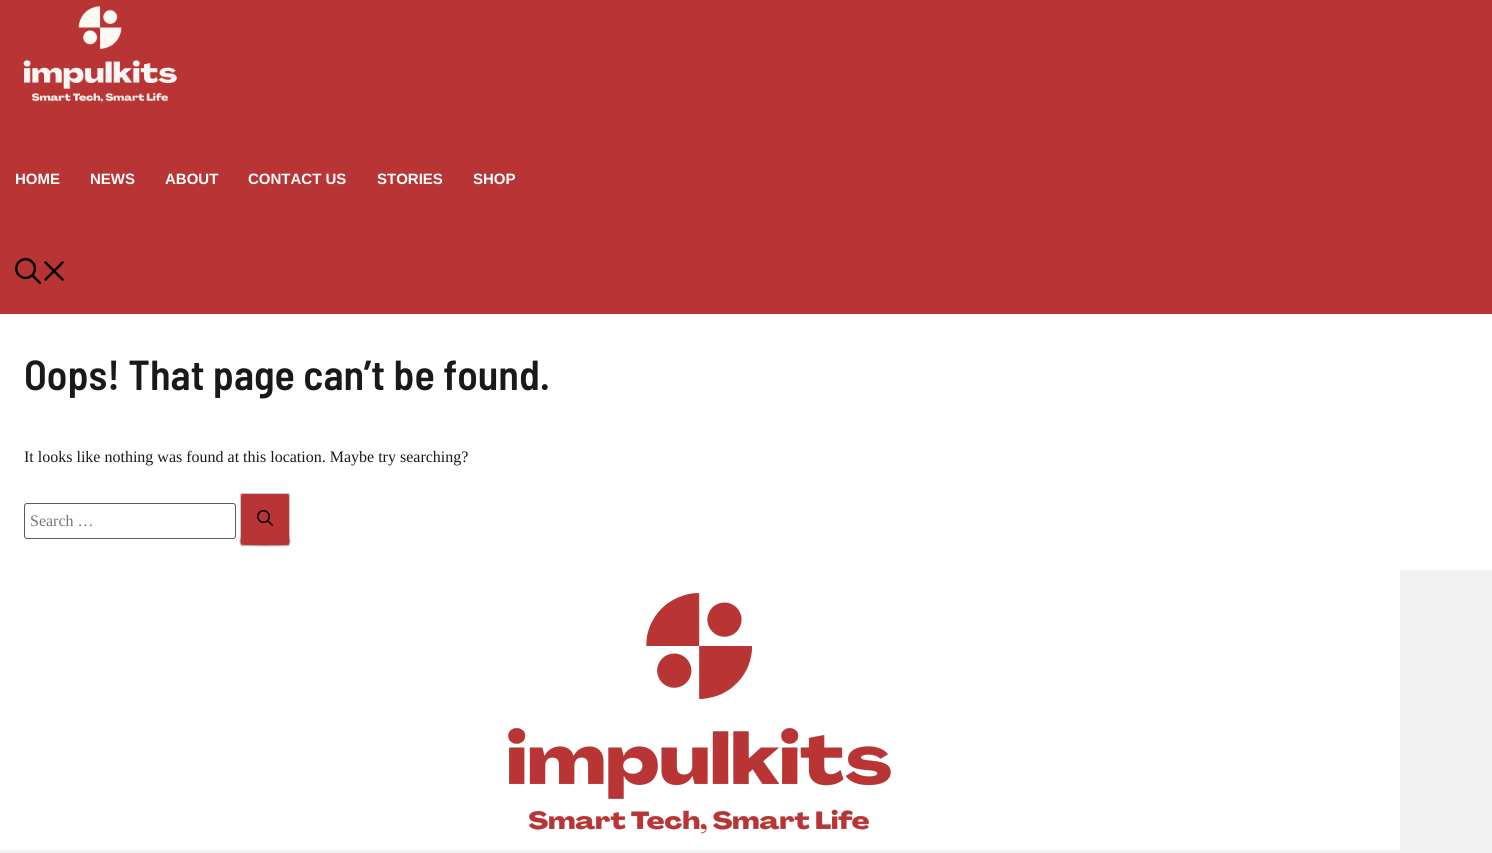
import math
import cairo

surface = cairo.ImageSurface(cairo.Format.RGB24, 1492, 853)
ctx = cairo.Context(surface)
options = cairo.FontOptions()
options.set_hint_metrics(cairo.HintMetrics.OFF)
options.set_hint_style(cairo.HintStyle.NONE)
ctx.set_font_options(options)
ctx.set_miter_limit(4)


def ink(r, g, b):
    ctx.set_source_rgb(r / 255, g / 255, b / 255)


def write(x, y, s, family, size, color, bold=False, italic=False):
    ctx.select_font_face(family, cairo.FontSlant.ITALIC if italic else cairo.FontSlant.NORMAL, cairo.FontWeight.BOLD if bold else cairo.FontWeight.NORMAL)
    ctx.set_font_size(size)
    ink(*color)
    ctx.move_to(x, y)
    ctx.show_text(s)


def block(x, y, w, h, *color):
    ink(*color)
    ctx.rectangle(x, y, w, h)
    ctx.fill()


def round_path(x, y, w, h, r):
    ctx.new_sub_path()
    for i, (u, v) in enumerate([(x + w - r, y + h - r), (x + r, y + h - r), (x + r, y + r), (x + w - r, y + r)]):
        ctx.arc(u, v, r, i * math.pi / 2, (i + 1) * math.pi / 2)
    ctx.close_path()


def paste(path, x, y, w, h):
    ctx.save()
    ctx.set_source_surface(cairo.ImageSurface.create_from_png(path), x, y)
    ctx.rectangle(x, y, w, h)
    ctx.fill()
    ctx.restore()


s1 = dict(family="Liberation Sans", size=15, color=(255, 255, 255), bold=True)
s2 = dict(family="Barlow Semi Condensed SemiBold", size=42, color=(25, 25, 25))
s3 = dict(family="Liberation Serif", size=16, color=(25, 25, 25))
s4 = dict(family="Liberation Serif", size=16, color=(117, 117, 117))

ink(255, 255, 255)
ctx.paint()
block(0, 0, 1492, 314, 185, 52, 52)
paste("pic1.png", 23, 6, 154, 97)
write(15, 184, "HOME", **s1)
write(90, 184, "NEWS", **s1)
write(165, 184, "ABOUT", **s1)
write(248, 184, "CONTACT US", **s1)
write(377, 184, "STORIES", **s1)
write(473, 184, "SHOP", **s1)
paste("pic2.png", 15, 258, 26, 26)
paste("pic3.png", 44, 261, 20, 20)
write(24, 390, "Oops! That page can’t be found.", **s2)
write(24, 462, "It looks like nothing was found at this location. Maybe try searching?", **s3)
round_path(24.5, 503.5, 211, 35, 2.5)
ink(91, 91, 91)
ctx.set_line_width(1)
ctx.stroke()
write(30, 526, "Search …", **s4)
ink(185, 52, 52)
round_path(240, 493, 50, 53, 3)
ctx.fill()
ctx.new_path()
ctx.move_to(289, 545)
ctx.line_to(287, 545.5)
ctx.curve_to(283, 546, 242.5, 546, 241, 545)
ink(187, 187, 187)
ctx.stroke()
ctx.new_path()
ctx.move_to(241, 545)
ctx.curve_to(239, 542.5, 240.5, 538.5, 240.5, 535)
ctx.line_to(240.5, 504)
ctx.curve_to(240.5, 492, 239, 493.5, 250.5, 493.5)
ctx.line_to(279.5, 493.5)
ctx.curve_to(291, 493.5, 289.5, 492, 289.5, 504)
ctx.line_to(289.5, 535)
ctx.curve_to(289.5, 538.5, 291, 542.5, 289, 545)
ink(204, 204, 204)
ctx.stroke()
paste("pic4.png", 257, 510, 16, 16)
block(0, 570, 1492, 283, 241, 241, 241)
block(0, 570, 1400, 280, 255, 255, 255)
paste("pic5.png", 508, 593, 383, 241)
surface.write_to_png("screenshot.png")
